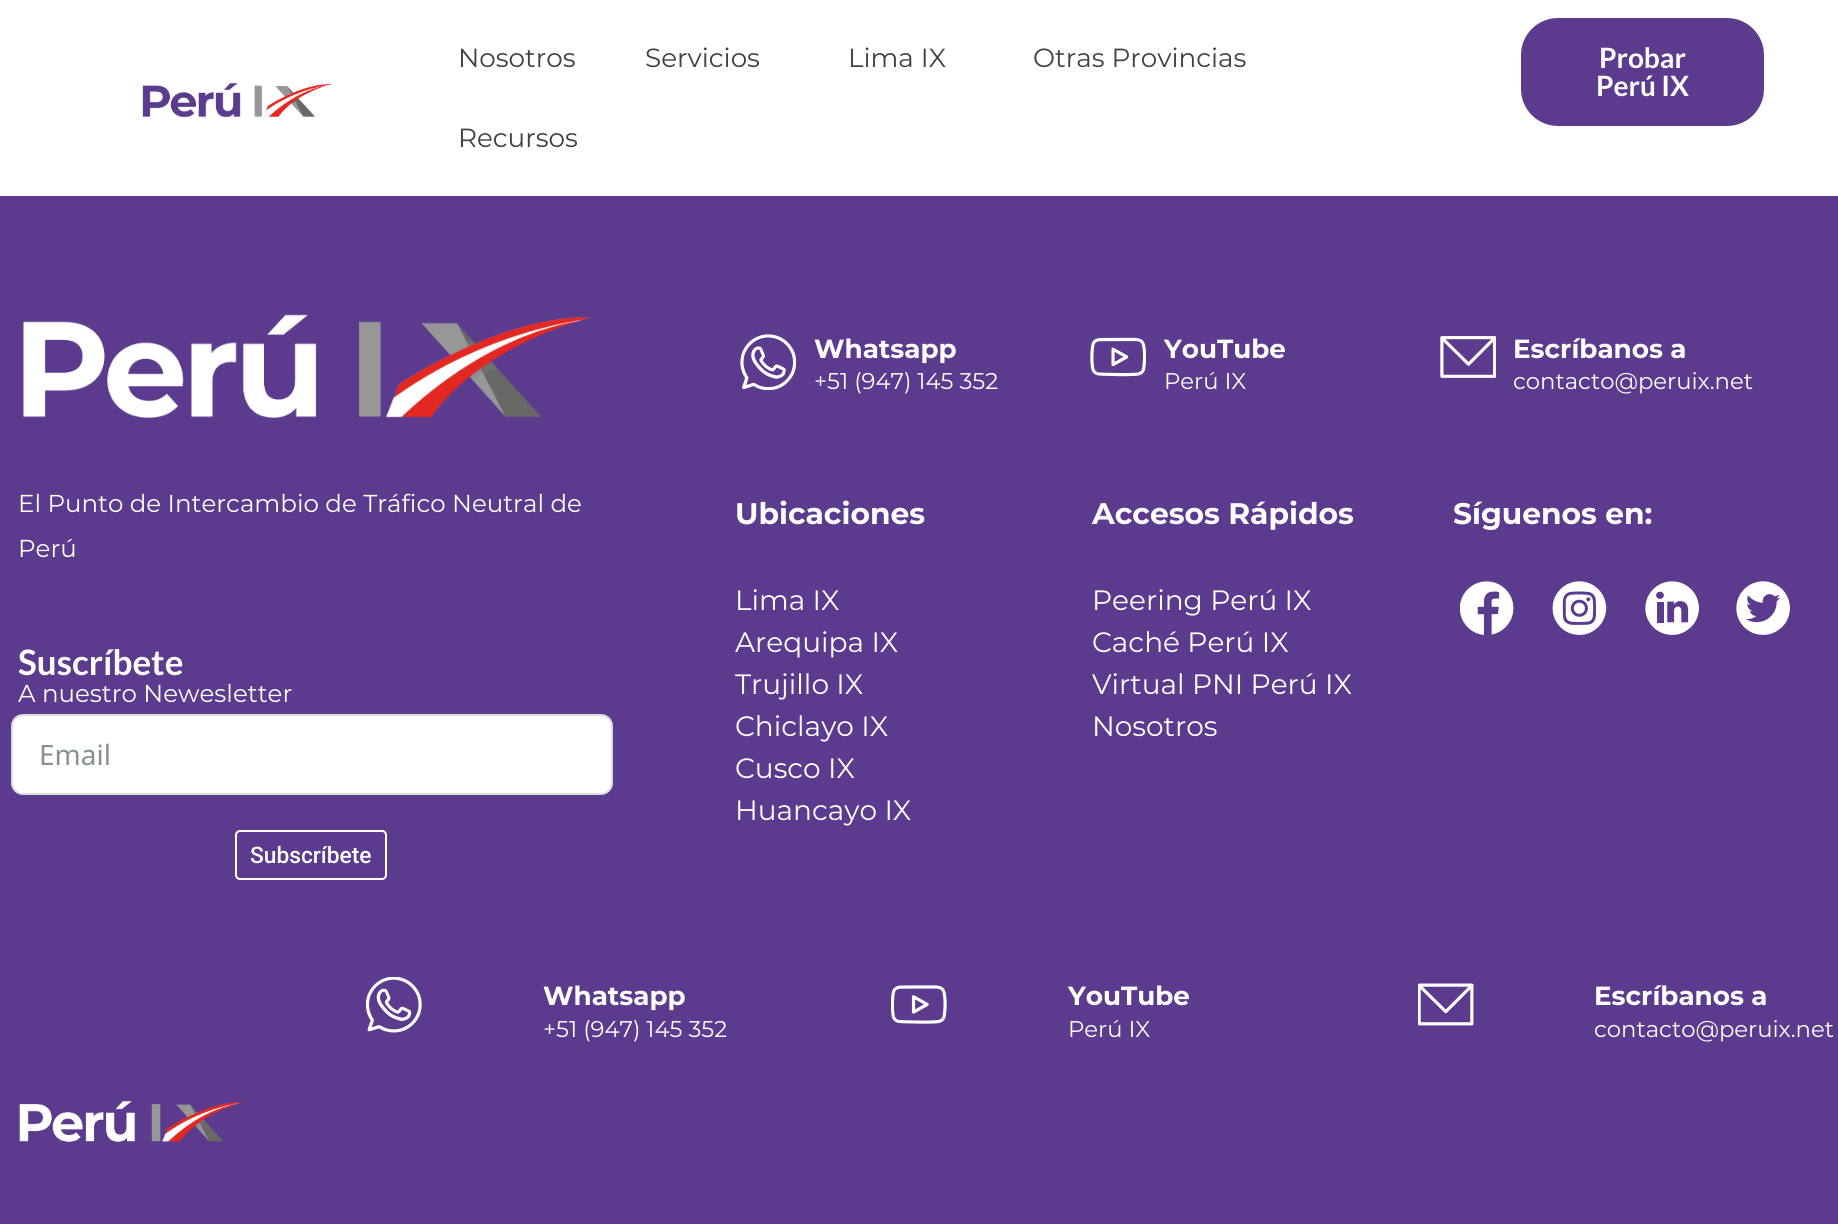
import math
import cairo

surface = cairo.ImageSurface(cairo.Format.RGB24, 1838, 1224)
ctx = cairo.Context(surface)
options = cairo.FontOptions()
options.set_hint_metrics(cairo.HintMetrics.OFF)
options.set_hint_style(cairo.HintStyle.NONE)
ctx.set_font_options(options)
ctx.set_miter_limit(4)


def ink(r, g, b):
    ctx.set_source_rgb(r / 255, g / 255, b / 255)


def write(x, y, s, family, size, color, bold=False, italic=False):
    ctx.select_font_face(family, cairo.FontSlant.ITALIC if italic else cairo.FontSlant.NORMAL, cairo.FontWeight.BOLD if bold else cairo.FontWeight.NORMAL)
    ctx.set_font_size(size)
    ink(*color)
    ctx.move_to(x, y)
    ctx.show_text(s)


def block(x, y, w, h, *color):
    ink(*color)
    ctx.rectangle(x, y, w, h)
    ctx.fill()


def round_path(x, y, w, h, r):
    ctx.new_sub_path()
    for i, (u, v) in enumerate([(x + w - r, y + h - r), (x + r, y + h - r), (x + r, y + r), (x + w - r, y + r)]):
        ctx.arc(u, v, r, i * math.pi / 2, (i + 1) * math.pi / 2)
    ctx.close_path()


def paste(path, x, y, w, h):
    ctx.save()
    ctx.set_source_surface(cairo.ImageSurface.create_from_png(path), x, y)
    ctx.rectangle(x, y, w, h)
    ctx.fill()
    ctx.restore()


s1 = dict(family="Montserrat", size=26.25, color=(65, 65, 65))
s2 = dict(family="Lato", size=28, color=(255, 255, 255), bold=True)
s3 = dict(family="Montserrat", size=26.25, color=(255, 255, 255), bold=True)
s4 = dict(family="Montserrat", size=22.75, color=(255, 255, 255))
s5 = dict(family="Montserrat", size=24.5, color=(255, 255, 255))
s6 = dict(family="Lato", size=35, color=(255, 255, 255), bold=True)
s7 = dict(family="Noto Sans", size=28, color=(134, 142, 150))
s8 = dict(family="Roboto Medium", size=22.75, color=(255, 255, 255))
s9 = dict(family="Montserrat", size=29.75, color=(255, 255, 255), bold=True)
s10 = dict(family="Montserrat", size=28, color=(255, 255, 255))

ink(92, 59, 143)
ctx.paint()
block(0, 0, 1838, 196, 255, 255, 255)
write(458, 67, "Nosotros", **s1)
write(645, 67, "Servicios", **s1)
write(848, 67, "Lima IX", **s1)
write(1033, 67, "Otras Provincias", **s1)
write(458, 147, "Recursos", **s1)
ink(92, 59, 143)
round_path(1521, 18, 243, 108, 37)
ctx.fill()
write(1599, 68, "Probar", **s2)
write(1596, 96, "Perú IX", **s2)
paste("pic1.png", 142, 83, 190, 35)
paste("pic2.png", 23, 314, 568, 104)
paste("pic3.png", 740, 334, 56, 56)
write(814, 358, "Whatsapp", **s3)
write(814, 389, "+51 (947) 145 352", **s4)
paste("pic4.png", 1090, 337, 56, 40)
write(1164, 358, "YouTube", **s3)
write(1164, 389, "Perú IX", **s4)
paste("pic5.png", 1440, 336, 56, 42)
write(1513, 358, "Escríbanos a", **s3)
write(1513, 389, "contacto@peruix.net", **s4)
write(18, 512, "El Punto de Intercambio de Tráfico Neutral de", **s5)
write(18, 557, "Perú", **s5)
write(18, 675, "Suscríbete", **s6)
write(18, 702, "A nuestro Newesletter", **s5)
round_path(12, 715, 600, 79, 11)
ctx.fill_preserve()
ink(218, 219, 221)
ctx.stroke()
write(39, 765, "Email", **s7)
round_path(236, 831, 150, 48, 4)
ink(255, 255, 255)
ctx.stroke()
write(250, 863, "Subscríbete", **s8)
write(735, 524, "Ubicaciones", **s9)
write(735, 610, "Lima IX", **s10)
write(735, 652, "Arequipa IX", **s10)
write(735, 694, "Trujillo IX", **s10)
write(735, 736, "Chiclayo IX", **s10)
write(735, 778, "Cusco IX", **s10)
write(735, 820, "Huancayo IX", **s10)
write(1092, 524, "Accesos Rápidos", **s9)
write(1092, 610, "Peering Perú IX", **s10)
write(1092, 652, "Caché Perú IX", **s10)
write(1092, 694, "Virtual PNI Perú IX", **s10)
write(1092, 736, "Nosotros", **s10)
write(1453, 524, "Síguenos en:", **s9)
paste("pic6.png", 1460, 581, 54, 54)
paste("pic7.png", 1552, 581, 55, 54)
paste("pic8.png", 1645, 581, 54, 54)
paste("pic9.png", 1736, 581, 54, 54)
paste("pic10.png", 366, 977, 56, 56)
write(543, 1005, "Whatsapp", **s3)
write(543, 1037, "+51 (947) 145 352", **s4)
paste("pic11.png", 891, 985, 56, 39)
write(1068, 1005, "YouTube", **s3)
write(1068, 1037, "Perú IX", **s4)
paste("pic12.png", 1418, 983, 56, 43)
write(1594, 1005, "Escríbanos a", **s3)
write(1594, 1037, "contacto@peruix.net", **s4)
paste("pic13.png", 19, 1101, 224, 41)
surface.write_to_png("screenshot.png")
